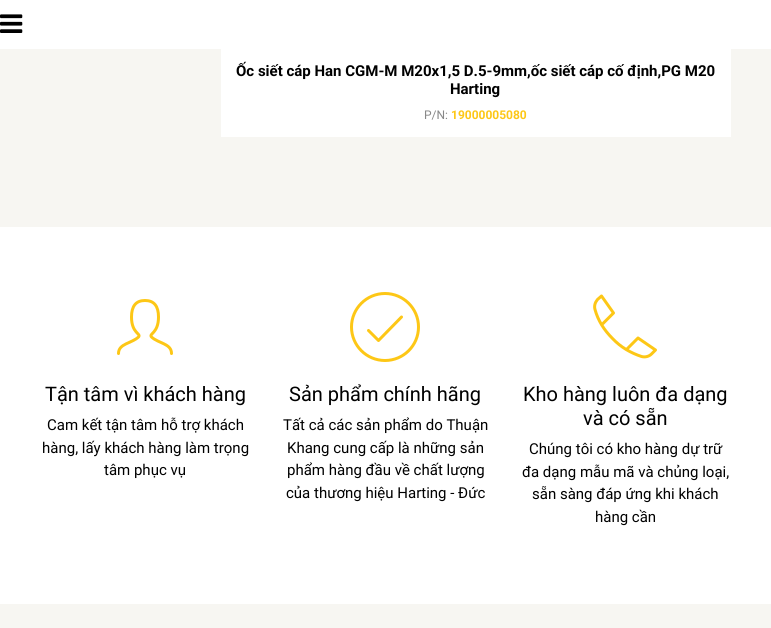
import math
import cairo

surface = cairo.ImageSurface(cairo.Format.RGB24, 771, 628)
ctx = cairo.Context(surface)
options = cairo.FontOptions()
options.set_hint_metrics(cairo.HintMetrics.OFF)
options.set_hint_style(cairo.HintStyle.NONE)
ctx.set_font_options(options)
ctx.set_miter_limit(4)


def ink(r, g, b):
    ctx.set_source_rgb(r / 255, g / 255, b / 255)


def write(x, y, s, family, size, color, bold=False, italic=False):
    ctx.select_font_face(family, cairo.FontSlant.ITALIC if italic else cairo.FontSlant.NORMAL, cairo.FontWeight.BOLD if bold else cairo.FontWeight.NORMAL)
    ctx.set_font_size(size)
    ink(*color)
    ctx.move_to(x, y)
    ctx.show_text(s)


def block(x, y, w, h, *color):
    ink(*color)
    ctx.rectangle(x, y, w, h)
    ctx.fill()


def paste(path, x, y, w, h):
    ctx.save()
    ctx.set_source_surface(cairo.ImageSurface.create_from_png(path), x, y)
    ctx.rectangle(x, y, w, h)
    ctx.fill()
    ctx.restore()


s1 = dict(family="Roboto", size=15, color=(0, 0, 0), bold=True)
s2 = dict(family="Roboto", size=12, color=(136, 136, 136))
s3 = dict(family="Roboto", size=12, color=(253, 199, 22), bold=True)
s4 = dict(family="Roboto", size=20, color=(0, 0, 0))
s5 = dict(family="Roboto", size=15, color=(0, 0, 0))

ink(247, 246, 242)
ctx.paint()
block(0, 0, 771, 49, 255, 255, 255)
paste("pic1.png", 0, 14, 23, 19)
block(221, 49, 510, 88, 255, 255, 255)
write(236, 76, "Ốc siết cáp Han CGM-M M20x1,5 D.5-9mm,ốc siết cáp cố định,PG M20", **s1)
write(450, 94, "Harting", **s1)
write(424, 119, "P/N:", **s2)
write(451, 119, "19000005080", **s3)
block(0, 227, 771, 377, 255, 255, 255)
ctx.new_path()
ctx.move_to(118.5, 353.5)
ctx.curve_to(118.5, 343.5, 131.5, 343.5, 138.5, 337)
ctx.curve_to(141.5, 333.5, 131.5, 333.5, 131.5, 317)
ctx.curve_to(131.5, 306, 136, 300.5, 145, 300.5)
ctx.curve_to(154, 300.5, 158.5, 306, 158.5, 317)
ctx.curve_to(158.5, 333.5, 148.5, 333.5, 151.5, 337)
ctx.curve_to(158.5, 343.5, 171.5, 343.5, 171.5, 353.5)
ink(253, 199, 22)
ctx.set_line_width(3)
ctx.set_line_cap(cairo.LineCap.ROUND)
ctx.set_line_join(cairo.LineJoin.ROUND)
ctx.stroke()
write(45, 401, "Tận tâm vì khách hàng", **s4)
write(47, 430, "Cam kết tận tâm hỗ trợ khách", **s5)
write(42, 453, "hàng, lấy khách hàng làm trọng", **s5)
write(104, 475, "tâm phục vụ", **s5)
ctx.new_path()
ctx.move_to(368.5, 330.5)
ctx.line_to(378.5, 340.5)
ctx.line_to(401.5, 317)
ink(253, 199, 22)
ctx.stroke()
ctx.arc(385, 327, 33.5, 0, 2 * math.pi)
ctx.set_line_cap(cairo.LineCap.BUTT)
ctx.set_line_join(cairo.LineJoin.MITER)
ctx.stroke()
write(289, 401, "Sản phẩm chính hãng", **s4)
write(283, 430, "Tất cả các sản phẩm do Thuận", **s5)
write(287, 453, "Khang cung cấp là những sản", **s5)
write(287, 475, "phẩm hàng đầu về chất lượng", **s5)
write(286, 498, "của thương hiệu Harting - Đức", **s5)
ctx.new_path()
ctx.move_to(627.5, 348.5)
ctx.line_to(638, 338)
ctx.line_to(655.5, 350)
ctx.line_to(651.5, 354)
ctx.curve_to(649, 356.5, 645, 357.5, 641.5, 356.5)
ctx.curve_to(631, 353, 621, 347.5, 612.5, 338.5)
ctx.curve_to(604, 330, 598, 320.5, 595, 309.5)
ctx.curve_to(594, 306, 595, 302.5, 597.5, 299.5)
ctx.line_to(601.5, 296)
ctx.line_to(613.5, 313)
ctx.line_to(603, 323.5)
ink(253, 199, 22)
ctx.set_line_cap(cairo.LineCap.ROUND)
ctx.set_line_join(cairo.LineJoin.ROUND)
ctx.stroke()
write(523, 401, "Kho hàng luôn đa dạng", **s4)
write(583, 425, "và có sẵn", **s4)
write(529, 454, "Chúng tôi có kho hàng dự trữ", **s5)
write(522, 477, "đa dạng mẫu mã và chủng loại,", **s5)
write(532, 499, "sẵn sàng đáp ứng khi khách", **s5)
write(595, 522, "hàng cần", **s5)
surface.write_to_png("screenshot.png")
